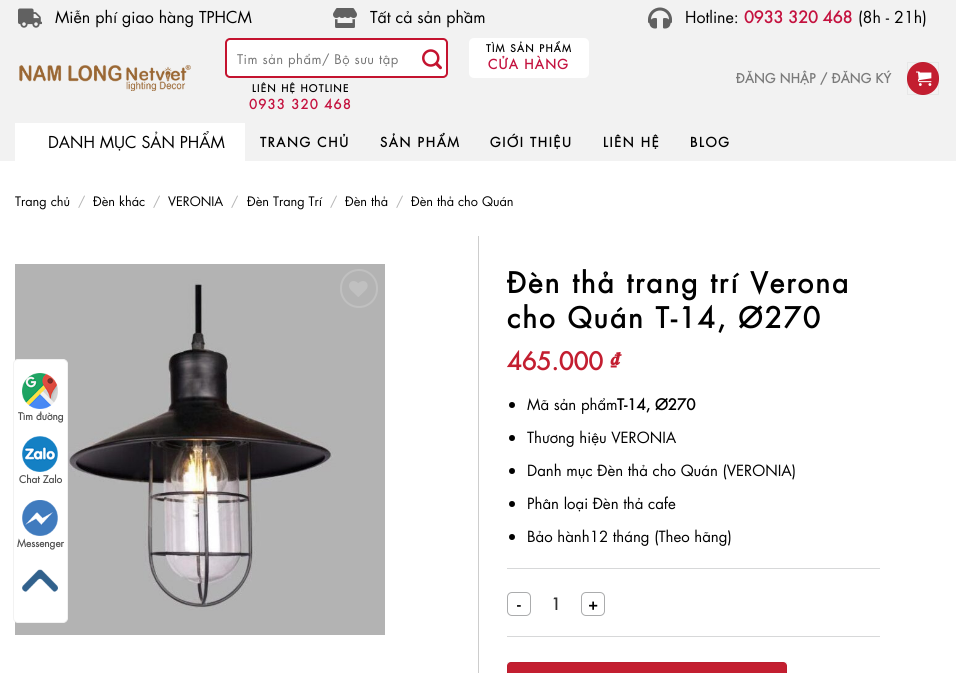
import math
import cairo

surface = cairo.ImageSurface(cairo.Format.RGB24, 956, 673)
ctx = cairo.Context(surface)
options = cairo.FontOptions()
options.set_hint_metrics(cairo.HintMetrics.OFF)
options.set_hint_style(cairo.HintStyle.NONE)
ctx.set_font_options(options)
ctx.set_miter_limit(4)


def ink(r, g, b):
    ctx.set_source_rgb(r / 255, g / 255, b / 255)


def write(x, y, s, family, size, color, bold=False, italic=False):
    ctx.select_font_face(family, cairo.FontSlant.ITALIC if italic else cairo.FontSlant.NORMAL, cairo.FontWeight.BOLD if bold else cairo.FontWeight.NORMAL)
    ctx.set_font_size(size)
    ink(*color)
    ctx.move_to(x, y)
    ctx.show_text(s)


def write_spaced(x, y, s, letter, word):
    ctx.move_to(x, y)
    for ch in s:
        ctx.show_text(ch)
        ctx.rel_move_to(letter + word * (ch == ' '), 0)


def block(x, y, w, h, *color):
    ink(*color)
    ctx.rectangle(x, y, w, h)
    ctx.fill()


def round_path(x, y, w, h, r):
    ctx.new_sub_path()
    for i, (u, v) in enumerate([(x + w - r, y + h - r), (x + r, y + h - r), (x + r, y + r), (x + w - r, y + r)]):
        ctx.arc(u, v, r, i * math.pi / 2, (i + 1) * math.pi / 2)
    ctx.close_path()


def paste(path, x, y, w, h):
    ctx.save()
    ctx.set_source_surface(cairo.ImageSurface.create_from_png(path), x, y)
    ctx.rectangle(x, y, w, h)
    ctx.fill()
    ctx.restore()


s1 = dict(family="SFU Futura", size=16, color=(0, 0, 0))
s2 = dict(family="SFU Futura", size=16, color=(196, 18, 63), bold=True)
s3 = dict(family="SFU Futura", size=12.75, color=(0, 0, 0))
s4 = dict(family="SFU Futura", size=12.75, color=(178, 178, 178))
s5 = dict(family="SFU Futura", size=24, color=(195, 30, 48), bold=True)
s6 = dict(family="SFU Futura", size=15, color=(0, 0, 0))
s7 = dict(family="SFU Futura", size=15, color=(0, 0, 0), bold=True)
s8 = dict(family="SFU Futura", size=16, color=(0, 0, 0), bold=True)
s9 = dict(family="SFU Futura", size=16, color=(51, 51, 51), bold=True)
s10 = dict(family="SFU Futura", size=10, color=(81, 81, 81), bold=True)

ink(255, 255, 255)
ctx.paint()
block(0, 0, 956, 161, 242, 242, 242)
paste("pic1.png", 18, 8, 24, 20)
write(55, 23, "Miễn phí giao hàng TPHCM", **s1)
paste("pic2.png", 333, 8, 24, 20)
write(370, 23, "Tất cả sản phầm", **s1)
paste("pic3.png", 648, 7, 24, 22)
write(685, 23, "Hotline:", **s1)
write(744, 23, "0933 320 468", **s2)
write(858, 23, "(8h - 21h)", **s1)
paste("pic4.png", 19, 65, 172, 26)
ink(255, 255, 255)
round_path(226, 39, 221, 38, 4)
ctx.fill_preserve()
ink(196, 19, 47)
ctx.stroke()
ctx.set_font_size(13)
ink(117, 117, 117)
write_spaced(237, 64, "Tim sản phẩm/ Bộ sưu tập", 0.5, 0)
paste("pic5.png", 422, 49, 20, 21)
ink(255, 255, 255)
round_path(469, 38, 120, 40, 5)
ctx.fill()
ctx.select_font_face("SFU Futura", cairo.FontSlant.NORMAL, cairo.FontWeight.BOLD)
ctx.set_font_size(10)
ink(0, 0, 0)
write_spaced(486, 52, "TÌM SẢN PHẨM", 1.25, 0)
ctx.set_font_size(13)
ink(196, 18, 63)
write_spaced(488, 69, "CỬA HÀNG", 1.25, 0)
ctx.set_font_size(10)
ink(0, 0, 0)
write_spaced(252, 92, "LIÊN HỆ HOTLINE", 1.25, 0)
ctx.set_font_size(13)
ink(196, 18, 63)
write_spaced(249, 109, "0933 320 468", 1.25, 0)
ctx.set_font_size(12.75)
ink(123, 123, 123)
write_spaced(736, 83, "ĐĂNG NHẬP / ĐĂNG KÝ", 0.25, 0)
ink(195, 30, 48)
round_path(907, 62, 32, 33, 16)
ctx.fill()
ctx.rectangle(907.5, 62.5, 31, 32)
ctx.set_source_rgba(0, 0, 0, 0.05)
ctx.set_line_width(1)
ctx.stroke()
paste("pic6.png", 916, 71, 16, 15)
block(15, 123, 230, 38, 255, 255, 255)
write(48, 148, "DANH MỤC SẢN PHẨM", **s1)
ctx.select_font_face("SFU Futura", cairo.FontSlant.NORMAL, cairo.FontWeight.BOLD)
ctx.set_font_size(13)
write_spaced(260, 147, "TRANG CHỦ", 1.6, 0)
write_spaced(380, 147, "SẢN PHẨM", 1.6, 0)
write_spaced(490, 147, "GIỚI THIỆU", 1.6, 0)
write_spaced(603, 147, "LIÊN HỆ", 1.6, 0)
write_spaced(690, 147, "BLOG", 1.6, 0)
write(15, 206, "Trang chủ", **s3)
write(78, 206, "/", **s4)
write(93, 206, "Đèn khác", **s3)
write(153, 206, "/", **s4)
write(168, 206, "VERONIA", **s3)
write(231, 206, "/", **s4)
write(247, 206, "Đèn Trang Trí", **s3)
write(330, 206, "/", **s4)
write(345, 206, "Đèn thả", **s3)
write(396, 206, "/", **s4)
write(411, 206, "Đèn thả cho Quán", **s3)
paste("pic7.png", 15, 264, 370, 371)
round_path(341, 270, 36, 37, 18)
ink(192, 192, 192)
ctx.set_line_width(2)
ctx.stroke()
paste("pic8.png", 349, 281, 19, 16)
block(478, 236, 1, 437, 205, 205, 205)
ctx.select_font_face("SFU Futura", cairo.FontSlant.NORMAL, cairo.FontWeight.BOLD)
ctx.set_font_size(28)
ink(0, 0, 0)
write_spaced(507, 293, "Đèn thả trang trí Verona", 2, 0)
write_spaced(507, 328, "cho Quán T-14, Ø270", 2, 0)
write(507, 370, "465.000 ₫", **s5)
ink(0, 0, 0)
ctx.new_path()
ctx.arc(512, 405, 3, 0, 2 * math.pi)
ctx.fill()
write(527, 410, "Mã sản phẩm", **s6)
write(617, 410, "T-14, Ø270", **s7)
ctx.new_path()
ctx.arc(512, 438, 3, 0, 2 * math.pi)
ctx.fill()
write(527, 443, "Thương hiệu VERONIA", **s6)
ctx.new_path()
ctx.arc(512, 471, 3, 0, 2 * math.pi)
ctx.fill()
write(527, 476, "Danh mục Đèn thả cho Quán (VERONIA)", **s6)
ctx.new_path()
ctx.arc(512, 504, 3, 0, 2 * math.pi)
ctx.fill()
write(527, 509, "Phân loại Đèn thả cafe", **s6)
ctx.new_path()
ctx.arc(512, 537, 3, 0, 2 * math.pi)
ctx.fill()
write(527, 542, "Bảo hành12 tháng (Theo hãng)", **s6)
block(507, 568, 373, 1, 215, 216, 217)
block(507, 636, 373, 1, 215, 216, 217)
round_path(507.5, 592.5, 23, 23, 4.5)
ink(171, 172, 173)
ctx.set_line_width(1)
ctx.stroke()
write(517, 610, "-", **s8)
write(551, 610, "1", **s9)
round_path(581.5, 592.5, 23, 23, 4.5)
ink(171, 172, 173)
ctx.stroke()
write(588, 610, "+", **s8)
ink(195, 30, 48)
round_path(507, 662, 280, 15, 4)
ctx.fill()
ctx.rectangle(507.5, 662.5, 279, 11)
ctx.set_source_rgba(0, 0, 0, 0.05)
ctx.stroke()
ink(255, 255, 255)
round_path(13.5, 359.5, 54, 263, 4.5)
ctx.fill_preserve()
ink(242, 242, 242)
ctx.stroke()
paste("pic9.png", 22, 373, 36, 36)
write(18, 420, "Tìm đường", **s10)
paste("pic10.png", 22, 436, 36, 36)
write(19, 483, "Chat Zalo", **s10)
paste("pic11.png", 22, 500, 36, 36)
write(17, 547, "Messenger", **s10)
paste("pic12.png", 22, 569, 36, 23)
surface.write_to_png("screenshot.png")
